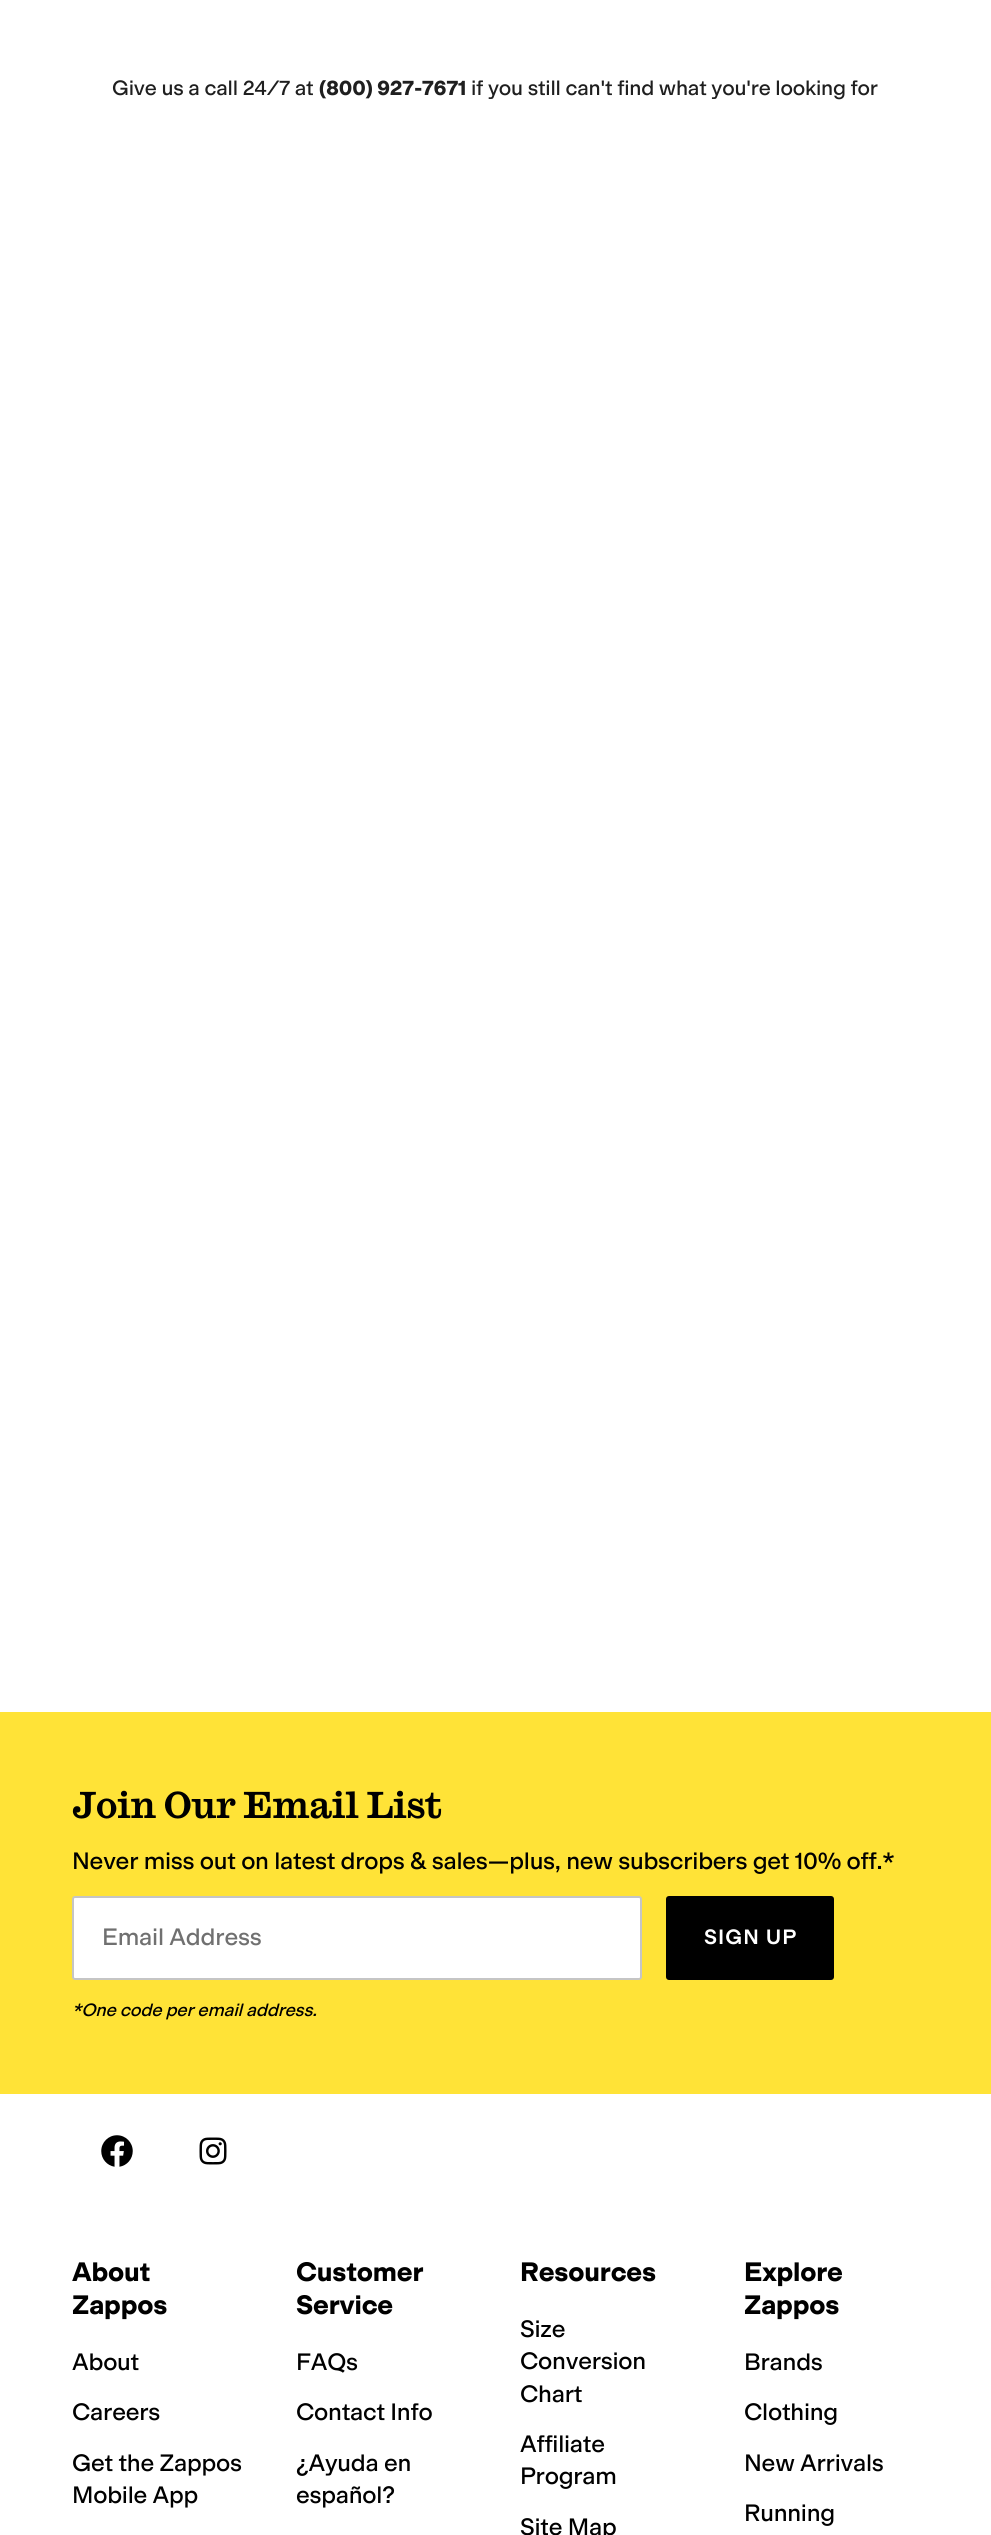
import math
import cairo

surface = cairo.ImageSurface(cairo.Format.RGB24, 991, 2535)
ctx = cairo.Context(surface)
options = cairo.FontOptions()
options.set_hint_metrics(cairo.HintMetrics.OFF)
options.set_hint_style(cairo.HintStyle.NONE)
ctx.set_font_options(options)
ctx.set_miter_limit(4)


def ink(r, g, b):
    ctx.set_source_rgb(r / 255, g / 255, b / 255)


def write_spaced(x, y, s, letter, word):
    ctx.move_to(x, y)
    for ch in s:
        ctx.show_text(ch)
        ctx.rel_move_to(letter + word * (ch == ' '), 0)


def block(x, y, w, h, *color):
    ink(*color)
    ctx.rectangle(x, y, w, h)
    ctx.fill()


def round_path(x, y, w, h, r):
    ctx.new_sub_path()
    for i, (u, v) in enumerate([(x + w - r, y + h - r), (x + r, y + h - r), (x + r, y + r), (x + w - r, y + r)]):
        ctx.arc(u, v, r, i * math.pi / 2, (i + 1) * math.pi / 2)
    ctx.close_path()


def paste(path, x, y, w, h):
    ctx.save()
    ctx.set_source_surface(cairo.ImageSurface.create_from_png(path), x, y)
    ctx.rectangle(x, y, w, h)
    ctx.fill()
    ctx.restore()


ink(255, 255, 255)
ctx.paint()
ctx.select_font_face("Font")
ctx.set_font_size(21)
ink(31, 31, 31)
write_spaced(112, 95, "Give us a call 24/7 at", -0.2, 0)
ctx.select_font_face("Font", cairo.FontSlant.NORMAL, cairo.FontWeight.BOLD)
write_spaced(319, 95, "(800) 927-7671", -0.2, 0)
ctx.select_font_face("Font")
write_spaced(471, 95, "if you still can't find what you're looking for", -0.2, 0)
block(0, 1712, 991, 382, 255, 227, 55)
paste("pic1.png", 72, 1790, 370, 29)
ctx.set_font_size(24)
ink(0, 0, 0)
write_spaced(72, 1869, "Never miss out on latest drops & sales—plus, new subscribers get 10% off.*", -0.25, 0)
ink(255, 255, 255)
round_path(73, 1897, 568, 82, 2)
ctx.fill_preserve()
ink(197, 197, 197)
ctx.stroke()
ink(112, 112, 112)
write_spaced(102, 1945, "Email Address", -0.2, 0)
ink(0, 0, 0)
round_path(667, 1897, 166, 82, 2)
ctx.fill_preserve()
ctx.stroke()
ctx.select_font_face("Font Medium")
ctx.set_font_size(21)
ink(255, 255, 255)
write_spaced(704, 1944, "SIGN UP", 1, 0)
ctx.select_font_face("Font", cairo.FontSlant.ITALIC)
ctx.set_font_size(18)
ink(0, 0, 0)
write_spaced(72, 2016, "*One code per email address.", -0.2, 0)
paste("pic2.png", 101, 2135, 32, 32)
paste("pic3.png", 199, 2137, 28, 28)
ctx.select_font_face("Font", cairo.FontSlant.NORMAL, cairo.FontWeight.BOLD)
ctx.set_font_size(27)
write_spaced(72, 2281, "About", -0.2, 0)
write_spaced(72, 2314, "Zappos", -0.2, 0)
ctx.select_font_face("Font")
ctx.set_font_size(24)
write_spaced(72, 2370, "About", -0.25, 0)
write_spaced(72, 2420, "Careers", -0.25, 0)
write_spaced(72, 2471, "Get the Zappos", -0.25, 0)
write_spaced(72, 2503, "Mobile App", -0.25, 0)
ctx.select_font_face("Font", cairo.FontSlant.NORMAL, cairo.FontWeight.BOLD)
ctx.set_font_size(27)
write_spaced(296, 2281, "Customer", -0.2, 0)
write_spaced(296, 2314, "Service", -0.2, 0)
ctx.select_font_face("Font")
ctx.set_font_size(24)
write_spaced(296, 2370, "FAQs", -0.25, 0)
write_spaced(296, 2420, "Contact Info", -0.25, 0)
write_spaced(296, 2471, "¿Ayuda en", -0.25, 0)
write_spaced(296, 2503, "español?", -0.25, 0)
ctx.select_font_face("Font", cairo.FontSlant.NORMAL, cairo.FontWeight.BOLD)
ctx.set_font_size(27)
write_spaced(520, 2281, "Resources", -0.2, 0)
ctx.select_font_face("Font")
ctx.set_font_size(24)
write_spaced(520, 2337, "Size", -0.25, 0)
write_spaced(520, 2369, "Conversion", -0.25, 0)
write_spaced(520, 2402, "Chart", -0.25, 0)
write_spaced(520, 2452, "Affiliate", -0.25, 0)
write_spaced(520, 2484, "Program", -0.25, 0)
write_spaced(520, 2535, "Site Map", -0.25, 0)
ctx.select_font_face("Font", cairo.FontSlant.NORMAL, cairo.FontWeight.BOLD)
ctx.set_font_size(27)
write_spaced(744, 2281, "Explore", -0.2, 0)
write_spaced(744, 2314, "Zappos", -0.2, 0)
ctx.select_font_face("Font")
ctx.set_font_size(24)
write_spaced(744, 2370, "Brands", -0.25, 0)
write_spaced(744, 2420, "Clothing", -0.25, 0)
write_spaced(744, 2471, "New Arrivals", -0.25, 0)
write_spaced(744, 2521, "Running", -0.25, 0)
surface.write_to_png("screenshot.png")
